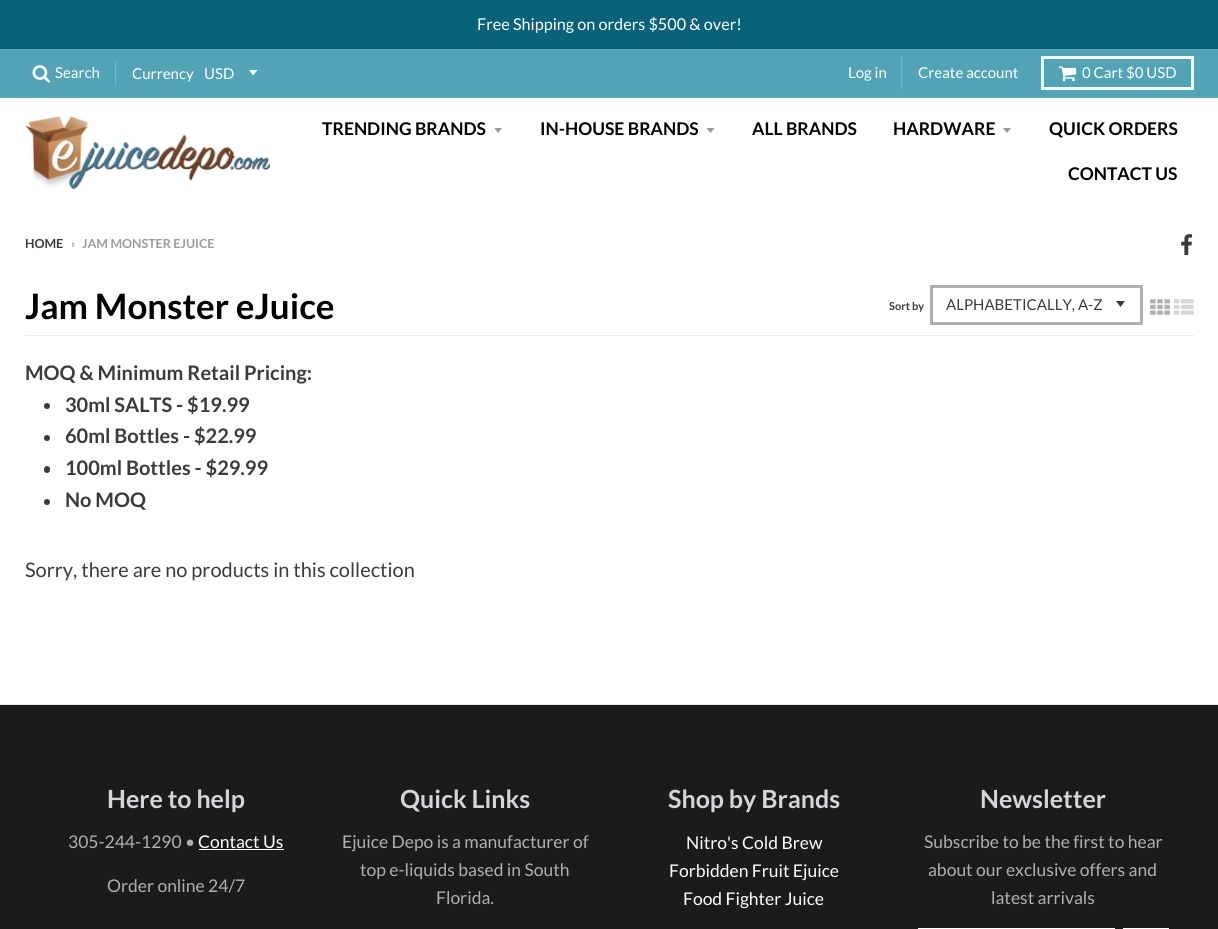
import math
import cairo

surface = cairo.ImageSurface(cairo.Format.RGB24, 1218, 929)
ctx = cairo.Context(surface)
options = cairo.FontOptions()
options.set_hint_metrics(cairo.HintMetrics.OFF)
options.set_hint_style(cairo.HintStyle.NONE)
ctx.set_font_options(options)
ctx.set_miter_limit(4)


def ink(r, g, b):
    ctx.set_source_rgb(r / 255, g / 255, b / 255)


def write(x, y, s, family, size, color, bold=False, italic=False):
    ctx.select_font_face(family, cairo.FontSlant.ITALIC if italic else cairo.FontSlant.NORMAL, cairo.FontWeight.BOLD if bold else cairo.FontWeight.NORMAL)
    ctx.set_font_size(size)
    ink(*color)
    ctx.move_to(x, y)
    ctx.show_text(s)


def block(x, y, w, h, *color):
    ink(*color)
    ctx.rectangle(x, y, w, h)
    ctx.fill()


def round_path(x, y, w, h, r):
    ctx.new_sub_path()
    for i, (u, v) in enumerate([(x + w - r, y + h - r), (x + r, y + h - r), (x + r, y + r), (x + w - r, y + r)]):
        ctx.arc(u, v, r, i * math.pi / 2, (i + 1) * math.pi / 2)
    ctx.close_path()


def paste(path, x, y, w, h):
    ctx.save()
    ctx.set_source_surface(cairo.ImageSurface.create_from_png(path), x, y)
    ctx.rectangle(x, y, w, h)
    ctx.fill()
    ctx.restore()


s1 = dict(family="Lato", size=16.25, color=(255, 255, 255))
s2 = dict(family="Lato", size=15, color=(255, 255, 255))
s3 = dict(family="Lato", size=17.5, color=(0, 0, 0), bold=True)
s4 = dict(family="Lato", size=12.5, color=(59, 58, 61), bold=True)
s5 = dict(family="Lato", size=12.5, color=(157, 156, 158), bold=True)
s6 = dict(family="Lato", size=35, color=(0, 0, 0), bold=True)
s7 = dict(family="Lato", size=11, color=(59, 58, 61), bold=True)
s8 = dict(family="Lato", size=15, color=(59, 58, 61))
s9 = dict(family="Lato", size=20, color=(59, 58, 61), bold=True)
s10 = dict(family="Lato", size=20, color=(59, 58, 61))
s11 = dict(family="Lato", size=25, color=(214, 212, 218), bold=True)
s12 = dict(family="Lato", size=17.5, color=(176, 175, 179))
s13 = dict(family="Lato", size=17.5, color=(255, 255, 255))

ink(255, 255, 255)
ctx.paint()
block(0, 0, 1218, 49, 10, 97, 122)
write(477, 30, "Free Shipping on orders $500 & over!", **s1)
block(0, 49, 1218, 49, 83, 163, 182)
paste("pic1.png", 32, 65, 18, 18)
write(55, 78, "Search", **s2)
block(115, 60, 1, 26, 117, 181, 196)
write(132, 79, "Currency", **s2)
ctx.new_path()
ctx.move_to(249, 70)
ctx.line_to(253, 75.5)
ctx.line_to(257.5, 70)
ctx.close_path()
ctx.fill()
write(204, 79, "USD", **s2)
block(901, 56, 1, 34, 117, 181, 196)
write(848, 78, "Log in", **s2)
write(918, 78, "Create account", **s2)
ctx.rectangle(1042.5, 57.5, 150, 31)
ctx.set_line_width(3)
ctx.stroke()
paste("pic2.png", 1058, 66, 19, 16)
write(1082, 78, "0 Cart $0 USD", **s2)
paste("pic3.png", 25, 115, 245, 74)
write(322, 135, "TRENDING BRANDS", **s3)
ctx.save()
ctx.rectangle(494, 128, 10, 6)
ctx.clip()
ink(153, 153, 153)
ctx.new_path()
ctx.move_to(494, 127.5)
ctx.line_to(498, 133)
ctx.line_to(502.5, 127.5)
ctx.close_path()
ctx.fill()
ctx.restore()
write(540, 135, "IN-HOUSE BRANDS", **s3)
ctx.save()
ctx.rectangle(706, 128, 10, 6)
ctx.clip()
ink(153, 153, 153)
ctx.new_path()
ctx.move_to(706, 127.5)
ctx.line_to(710.5, 133)
ctx.line_to(715, 127.5)
ctx.close_path()
ctx.fill()
ctx.restore()
write(752, 135, "ALL BRANDS", **s3)
write(893, 135, "HARDWARE", **s3)
ctx.save()
ctx.rectangle(1003, 128, 10, 6)
ctx.clip()
ink(153, 153, 153)
ctx.new_path()
ctx.move_to(1002.5, 127.5)
ctx.line_to(1007, 133)
ctx.line_to(1011.5, 127.5)
ctx.close_path()
ctx.fill()
ctx.restore()
write(1049, 135, "QUICK ORDERS", **s3)
write(1068, 180, "CONTACT US", **s3)
block(0, 704, 1218, 1, 235, 235, 235)
write(25, 248, "HOME", **s4)
write(71, 248, "›", **s5)
write(82, 248, "JAM MONSTER EJUICE", **s5)
paste("pic4.png", 1181, 234, 12, 21)
block(25, 335, 1169, 1, 235, 235, 235)
write(25, 319, "Jam Monster eJuice", **s6)
write(889, 310, "Sort by", **s7)
ctx.new_path()
ctx.move_to(1116, 301)
ctx.line_to(1120.5, 307)
ctx.line_to(1125, 301)
ctx.close_path()
ctx.fill()
ctx.rectangle(931.5, 286.5, 210, 37)
ink(176, 176, 177)
ctx.stroke()
write(946, 310, "ALPHABETICALLY, A-Z", **s8)
paste("pic5.png", 1150, 299, 20, 16)
paste("pic6.png", 1173, 299, 21, 16)
write(25, 380, "MOQ & Minimum Retail Pricing:", **s9)
ctx.new_path()
ctx.arc(47, 406, 3, 0, 2 * math.pi)
ctx.fill()
write(65, 412, "30ml SALTS - $19.99", **s9)
ctx.new_path()
ctx.arc(47, 438, 3, 0, 2 * math.pi)
ctx.fill()
write(65, 443, "60ml Bottles - $22.99", **s9)
round_path(44, 466, 6, 7, 3)
ctx.fill()
write(65, 475, "100ml Bottles - $29.99", **s9)
ctx.new_path()
ctx.arc(47, 502, 3, 0, 2 * math.pi)
ctx.fill()
write(65, 507, "No MOQ", **s9)
write(25, 577, "Sorry, there are no products in this collection", **s10)
block(0, 705, 1218, 224, 27, 27, 27)
write(107, 808, "Here to help", **s11)
write(68, 848, "305-244-1290 •", **s12)
write(198, 848, "Contact Us", **s13)
block(199, 849, 85, 1, 255, 255, 255)
write(107, 892, "Order online 24/7", **s12)
write(400, 808, "Quick Links", **s11)
write(342, 848, "Ejuice Depo is a manufacturer of", **s12)
write(360, 876, "top e-liquids based in South", **s12)
write(436, 904, "Florida.", **s12)
write(668, 808, "Shop by Brands", **s11)
write(686, 849, "Nitro's Cold Brew", **s13)
write(669, 877, "Forbidden Fruit Ejuice", **s13)
write(683, 905, "Food Fighter Juice", **s13)
write(980, 808, "Newsletter", **s11)
write(924, 848, "Subscribe to be the first to hear", **s12)
write(928, 876, "about our exclusive offers and", **s12)
write(991, 904, "latest arrivals", **s12)
ctx.rectangle(919.5, 929.5, 194, 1)
ink(255, 255, 255)
ctx.stroke()
block(1123, 928, 46, 1, 255, 255, 255)
surface.write_to_png("screenshot.png")
